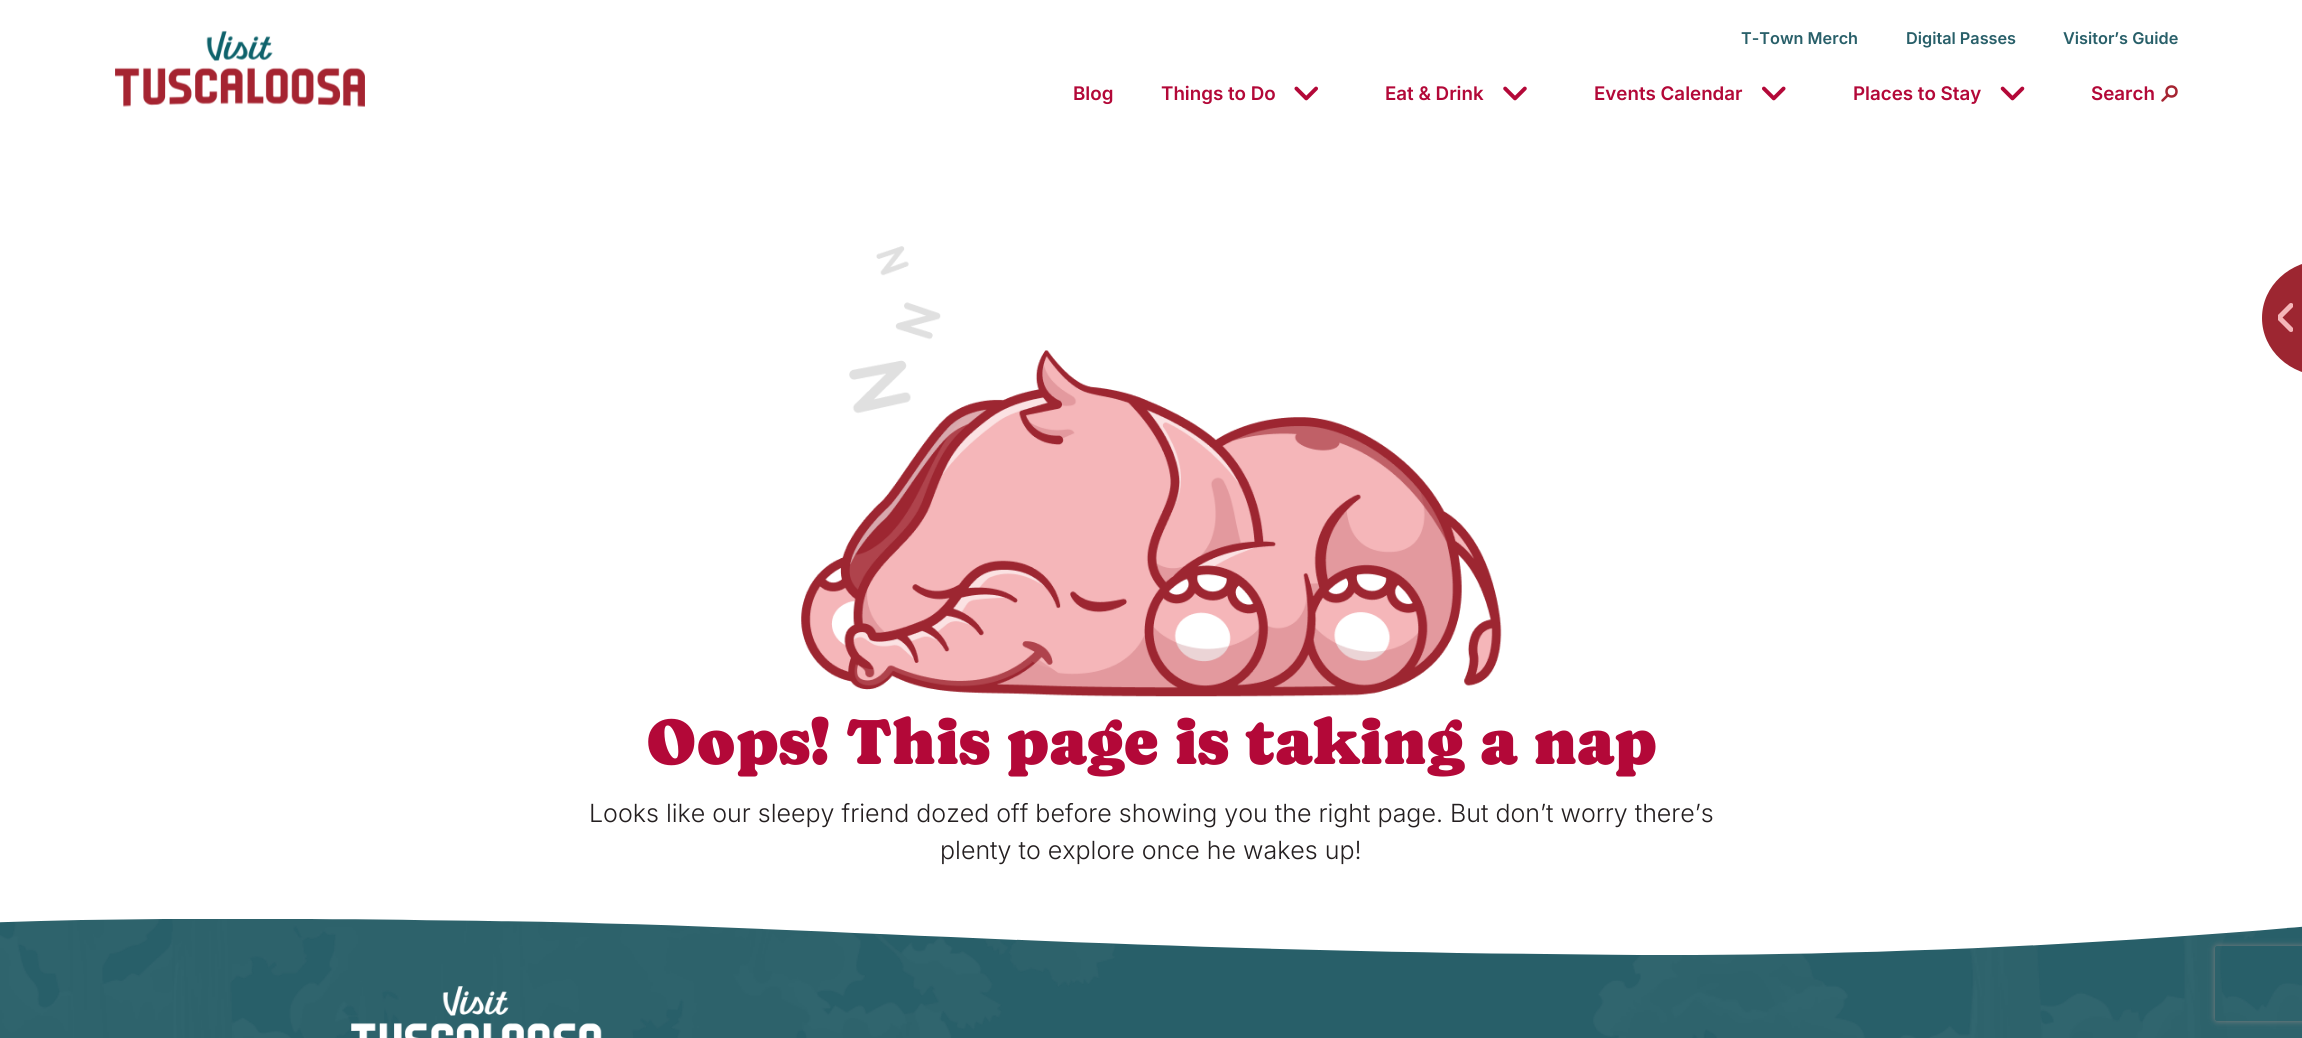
import math
import cairo

surface = cairo.ImageSurface(cairo.Format.RGB24, 2302, 1038)
ctx = cairo.Context(surface)
options = cairo.FontOptions()
options.set_hint_metrics(cairo.HintMetrics.OFF)
options.set_hint_style(cairo.HintStyle.NONE)
ctx.set_font_options(options)
ctx.set_miter_limit(4)


def ink(r, g, b):
    ctx.set_source_rgb(r / 255, g / 255, b / 255)


def write(x, y, s, family, size, color, bold=False, italic=False):
    ctx.select_font_face(family, cairo.FontSlant.ITALIC if italic else cairo.FontSlant.NORMAL, cairo.FontWeight.BOLD if bold else cairo.FontWeight.NORMAL)
    ctx.set_font_size(size)
    ink(*color)
    ctx.move_to(x, y)
    ctx.show_text(s)


def round_path(x, y, w, h, r):
    ctx.new_sub_path()
    for i, (u, v) in enumerate([(x + w - r, y + h - r), (x + r, y + h - r), (x + r, y + r), (x + w - r, y + r)]):
        ctx.arc(u, v, r, i * math.pi / 2, (i + 1) * math.pi / 2)
    ctx.close_path()


def blur_box(x, y, w, h, r, blur, alpha):
    ctx.push_group_with_content(cairo.Content.ALPHA)
    ctx.set_operator(cairo.Operator.SOURCE)
    for i in range(15, -16, -2):
        e = blur * i / 6
        if min(w, h) + 2 * e > 0:
            ctx.set_source_rgba(0, 0, 0, alpha * math.erfc((i - 1) / 8.5) / 2)
            round_path(x - e, y - e, w + 2 * e, h + 2 * e, max(0, min(r + e + blur * .6, min(w, h) / 2 + e)))
            ctx.fill()
    ctx.mask(ctx.pop_group())


def paste(path, x, y, w, h):
    ctx.save()
    ctx.set_source_surface(cairo.ImageSurface.create_from_png(path), x, y)
    ctx.rectangle(x, y, w, h)
    ctx.fill()
    ctx.restore()


s1 = dict(family="Inter SemiBold", size=16.25, color=(40, 95, 105))
s2 = dict(family="Inter SemiBold", size=18.75, color=(179, 8, 56))
s3 = dict(family="Caprasimo", size=65, color=(179, 8, 56))
s4 = dict(family="Inter Light", size=25, color=(36, 31, 32))

ink(255, 255, 255)
ctx.paint()
paste("pic1.png", 115, 30, 250, 77)
write(1741, 44, "T-Town Merch", **s1)
write(1906, 44, "Digital Passes", **s1)
write(2063, 44, "Visitor’s Guide", **s1)
write(1073, 100, "Blog", **s2)
write(1161, 100, "Things to Do", **s2)
paste("pic2.png", 1294, 86, 24, 15)
write(1385, 100, "Eat & Drink", **s2)
paste("pic3.png", 1503, 86, 24, 15)
write(1594, 100, "Events Calendar", **s2)
paste("pic4.png", 1762, 86, 24, 15)
write(1853, 100, "Places to Stay", **s2)
paste("pic5.png", 2000, 86, 25, 15)
write(2091, 100, "Search", **s2)
ctx.new_path()
ctx.arc(2171.5, 91.5, 5, 0, 2 * math.pi)
ink(165, 36, 49)
ctx.set_line_width(2.5)
ctx.stroke()
ctx.new_path()
ctx.move_to(2162.5, 100.5)
ctx.line_to(2167.5, 95.5)
ctx.set_line_cap(cairo.LineCap.ROUND)
ctx.stroke()
paste("pic6.png", 801, 246, 701, 451)
write(646, 764, "Oops! This page is taking a nap", **s3)
write(589, 822, "Looks like our sleepy friend dozed off before showing you the right page. But don’t worry there’s", **s4)
write(940, 859, "plenty to explore once he wakes up!", **s4)
paste("pic7.png", 0, 919, 2302, 119)
paste("pic8.png", 351, 986, 251, 52)
ink(157, 38, 49)
ctx.new_path()
ctx.move_to(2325, 260)
ctx.line_to(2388, 260)
ctx.line_to(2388, 376)
ctx.line_to(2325, 376)
ctx.curve_to(2290, 376, 2262, 350, 2262, 318)
ctx.curve_to(2262, 286, 2290, 260, 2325, 260)
ctx.close_path()
ctx.fill()
ctx.save()
ctx.rectangle(2278, 303, 15, 30)
ctx.clip()
ctx.new_path()
ctx.move_to(2291, 305.5)
ctx.line_to(2279, 317.5)
ctx.move_to(2291, 329.5)
ctx.line_to(2279, 317.5)
ink(245, 182, 185)
ctx.set_line_width(5)
ctx.stroke()
ctx.restore()
ctx.save()
ctx.set_fill_rule(cairo.FillRule.EVEN_ODD)
ctx.new_path()
ctx.move_to(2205, 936)
ctx.line_to(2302, 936)
ctx.line_to(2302, 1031)
ctx.line_to(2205, 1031)
ctx.close_path()
ctx.move_to(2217.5, 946)
ctx.line_to(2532.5, 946)
ctx.curve_to(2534, 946, 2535, 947, 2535, 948.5)
ctx.line_to(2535, 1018.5)
ctx.curve_to(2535, 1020, 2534, 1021, 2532.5, 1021)
ctx.line_to(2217.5, 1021)
ctx.curve_to(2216, 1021, 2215, 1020, 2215, 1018.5)
ctx.line_to(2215, 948.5)
ctx.curve_to(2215, 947, 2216, 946, 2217.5, 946)
ctx.close_path()
ctx.clip()
ink(128, 128, 128)
blur_box(2215, 946, 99, 75, 2.5, 3, 1)
ctx.restore()
surface.write_to_png("screenshot.png")
